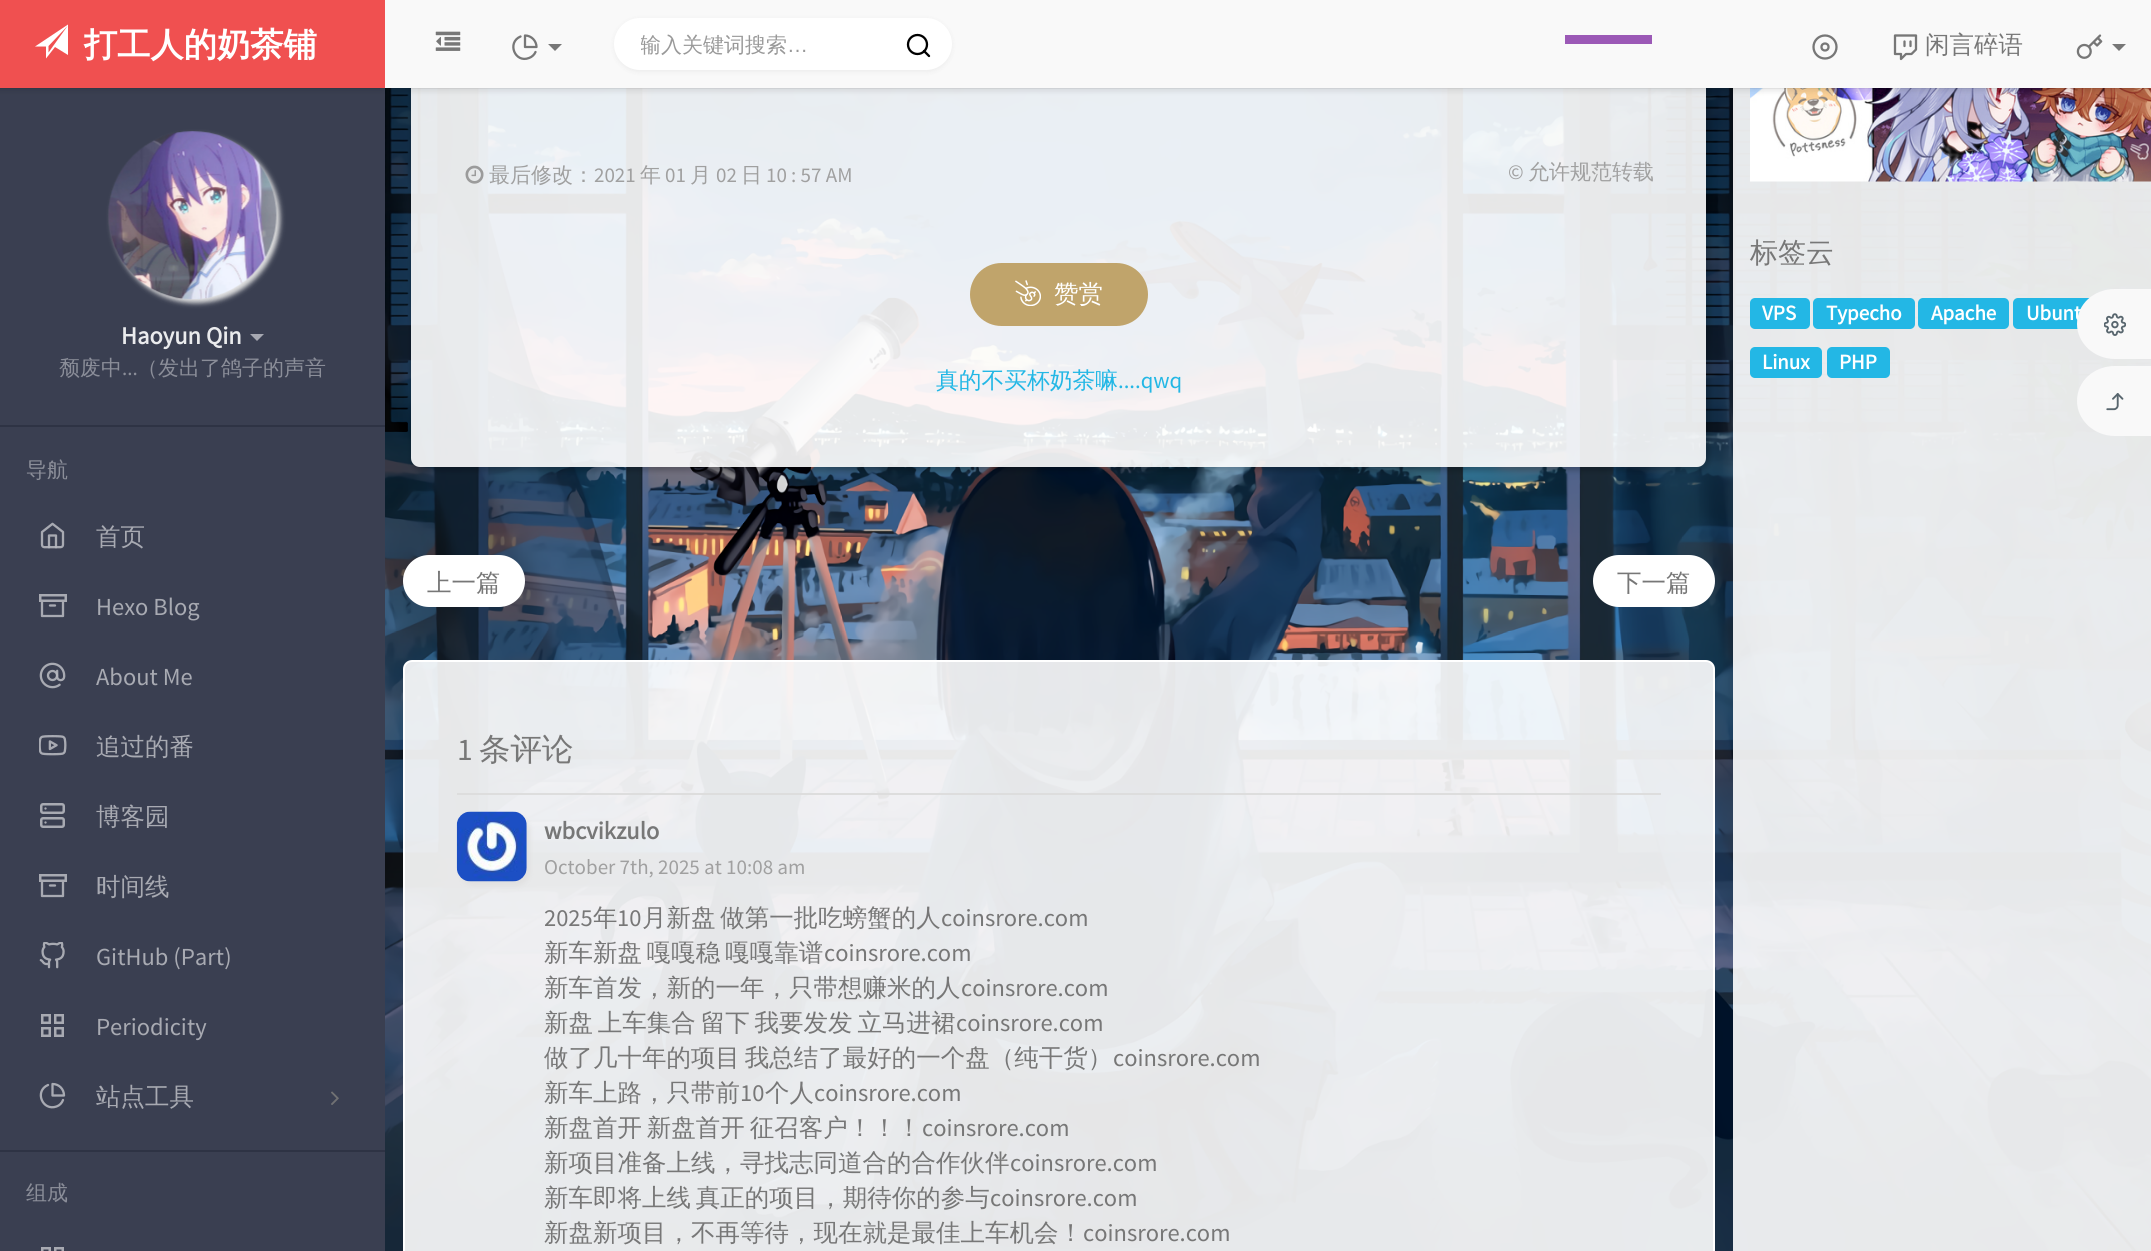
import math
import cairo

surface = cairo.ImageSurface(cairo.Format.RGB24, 2151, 1251)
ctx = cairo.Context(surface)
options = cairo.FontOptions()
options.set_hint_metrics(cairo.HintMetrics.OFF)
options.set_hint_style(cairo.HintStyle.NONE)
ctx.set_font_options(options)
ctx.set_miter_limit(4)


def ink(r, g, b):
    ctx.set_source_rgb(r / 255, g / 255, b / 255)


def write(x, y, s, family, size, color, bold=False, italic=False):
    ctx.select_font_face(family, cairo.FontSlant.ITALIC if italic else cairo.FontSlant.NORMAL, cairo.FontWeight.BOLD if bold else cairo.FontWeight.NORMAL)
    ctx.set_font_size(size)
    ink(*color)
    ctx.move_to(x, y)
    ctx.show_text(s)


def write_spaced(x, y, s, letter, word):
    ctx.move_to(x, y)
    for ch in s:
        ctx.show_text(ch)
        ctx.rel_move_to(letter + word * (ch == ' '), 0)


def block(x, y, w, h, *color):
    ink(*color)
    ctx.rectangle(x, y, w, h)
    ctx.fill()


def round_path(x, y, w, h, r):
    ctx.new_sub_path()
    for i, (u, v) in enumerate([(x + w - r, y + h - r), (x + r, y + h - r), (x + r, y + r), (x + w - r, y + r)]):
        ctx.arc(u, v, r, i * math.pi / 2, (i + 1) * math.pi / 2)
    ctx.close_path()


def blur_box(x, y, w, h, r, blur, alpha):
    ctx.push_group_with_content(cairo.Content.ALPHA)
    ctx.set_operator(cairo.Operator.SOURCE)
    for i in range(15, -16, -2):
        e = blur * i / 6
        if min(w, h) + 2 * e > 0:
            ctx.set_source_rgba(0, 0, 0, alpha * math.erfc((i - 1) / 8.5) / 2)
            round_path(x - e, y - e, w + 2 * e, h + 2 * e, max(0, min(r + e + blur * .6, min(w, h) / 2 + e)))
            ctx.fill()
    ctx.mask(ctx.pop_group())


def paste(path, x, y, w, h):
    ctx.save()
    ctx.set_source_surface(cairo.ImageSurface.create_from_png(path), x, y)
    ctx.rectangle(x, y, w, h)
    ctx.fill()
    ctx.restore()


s1 = dict(family="WenQuanYi Zen Hei", size=33.25, color=(255, 255, 255), bold=True)
s2 = dict(family="WenQuanYi Zen Hei Medium", size=21, color=(153, 153, 153))
s3 = dict(family="Liberation Sans", size=21, color=(153, 153, 153))
s4 = dict(family="WenQuanYi Zen Hei Medium", size=24.5, color=(119, 119, 119))
s5 = dict(family="Source Sans Pro", size=24.5, color=(234, 235, 237), bold=True)
s6 = dict(family="WenQuanYi Zen Hei Medium", size=21, color=(139, 142, 153))
s7 = dict(family="Source Sans Pro", size=21, color=(139, 142, 153))
s8 = dict(family="WenQuanYi Zen Hei Medium", size=24.5, color=(168, 170, 178))
s9 = dict(family="Source Sans Pro", size=24.5, color=(168, 170, 178))
s10 = dict(family="WenQuanYi Zen Hei Medium", size=21, color=(160, 160, 160))
s11 = dict(family="Source Sans Pro", size=21, color=(160, 160, 160))
s12 = dict(family="WenQuanYi Zen Hei Medium", size=24.5, color=(255, 255, 255))
s13 = dict(family="WenQuanYi Zen Hei Medium", size=22.75, color=(35, 183, 229))
s14 = dict(family="Source Sans Pro", size=22.75, color=(35, 183, 229))
s15 = dict(family="Source Sans Pro", size=31.5, color=(119, 119, 119))
s16 = dict(family="WenQuanYi Zen Hei Medium", size=31.5, color=(119, 119, 119))
s17 = dict(family="Source Sans Pro", size=24.5, color=(119, 119, 119), bold=True)
s18 = dict(family="Source Sans Pro", size=24.5, color=(119, 119, 119))
s19 = dict(family="WenQuanYi Zen Hei Medium", size=28, color=(119, 119, 119))
s20 = dict(family="Source Sans Pro", size=21, color=(255, 255, 255), bold=True)

ink(255, 255, 255)
ctx.paint()
block(0, 89, 385, 1162, 58, 63, 81)
paste("pic15.png", 385, 88, 1766, 1163)
ctx.save()
ctx.set_fill_rule(cairo.FillRule.EVEN_ODD)
ctx.new_path()
ctx.move_to(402, 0)
ctx.line_to(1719, 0)
ctx.line_to(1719, 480)
ctx.line_to(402, 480)
ctx.close_path()
ctx.move_to(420, -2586)
ctx.line_to(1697, -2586)
ctx.curve_to(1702, -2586, 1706, -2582, 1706, -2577)
ctx.line_to(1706, 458)
ctx.curve_to(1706, 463, 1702, 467, 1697, 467)
ctx.line_to(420, 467)
ctx.curve_to(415, 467, 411, 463, 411, 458)
ctx.line_to(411, -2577)
ctx.curve_to(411, -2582, 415, -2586, 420, -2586)
ctx.close_path()
ctx.clip()
ink(0, 0, 0)
blur_box(411, -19, 1299, 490, 11, 2.5, 0.2)
ctx.restore()
ctx.set_source_rgba(1, 1, 1, 0.9)
round_path(411, -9, 1295, 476, 9)
ctx.fill()
ctx.rectangle(1733, 88, 418, 1163)
ctx.fill()
paste("pic13.png", 1750, 88, 401, 94)
ink(0, 0, 0)
blur_box(-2, 0, 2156, 91, 0, 3.5, 0.05)
block(0, 88, 385, 1, 53, 58, 74)
ink(0, 0, 0)
blur_box(-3, 4, 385, 87, 0, 2, 0.05)
block(0, 0, 385, 88, 240, 80, 80)
ink(255, 255, 255)
ctx.new_path()
ctx.move_to(68, 55)
ctx.line_to(55, 47)
ctx.line_to(46, 58.5)
ctx.line_to(46, 46.5)
ctx.line_to(35, 46.5)
ctx.line_to(68, 24.5)
ctx.close_path()
ctx.move_to(48.5, 46)
ctx.line_to(48.5, 52.5)
ctx.line_to(67.5, 26)
ctx.close_path()
ctx.fill()
write(84, 56, "打工人的奶茶铺", **s1)
ctx.set_source_rgba(0, 0, 0, 0.05)
ctx.new_path()
ctx.move_to(385, 88)
ctx.line_to(385, 89)
ctx.line_to(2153, 89)
ctx.line_to(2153, 2)
ctx.line_to(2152, 2)
ctx.line_to(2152, 88)
ctx.close_path()
ctx.fill()
ink(0, 0, 0)
blur_box(389, 4, 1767, 87, 0, 2, 0.05)
block(385, 0, 1766, 88, 249, 249, 249)
paste("pic1.png", 435, 31, 26, 20)
ctx.new_path()
ctx.move_to(535.5, 52)
ctx.curve_to(534.5, 54.5, 532, 57, 529, 58)
ctx.curve_to(515, 63.5, 506.5, 42.5, 520.5, 36.5)
ctx.move_to(536.5, 47)
ctx.curve_to(536.5, 41, 531.5, 35.5, 525, 35.5)
ctx.line_to(525, 47)
ctx.close_path()
ink(119, 119, 119)
ctx.set_line_width(2.3)
ctx.set_line_cap(cairo.LineCap.ROUND)
ctx.set_line_join(cairo.LineJoin.ROUND)
ctx.stroke()
ctx.new_path()
ctx.move_to(548, 44)
ctx.line_to(562, 44)
ctx.line_to(555, 51)
ctx.close_path()
ctx.fill()
ink(0, 0, 0)
blur_box(614, 19, 338, 53, 26.5, 2.5, 0.05)
ink(255, 255, 255)
round_path(614, 18, 338, 52, 26)
ctx.fill()
ctx.save()
ctx.rectangle(641, 32, 213, 29)
ctx.clip()
write(640, 52, "输入关键词搜索", **s2)
ctx.restore()
write(787, 52, "…", **s3)
ctx.new_path()
ctx.arc(917.5, 44.5, 9.5, 0, 2 * math.pi)
ink(0, 0, 0)
ctx.set_line_cap(cairo.LineCap.BUTT)
ctx.set_line_join(cairo.LineJoin.MITER)
ctx.stroke()
ctx.new_path()
ctx.move_to(929, 56)
ctx.line_to(924, 51)
ctx.set_line_cap(cairo.LineCap.ROUND)
ctx.set_line_join(cairo.LineJoin.ROUND)
ctx.stroke()
block(1565, 35, 87, 9, 155, 89, 182)
ctx.arc(1825, 47, 11.5, 0, 2 * math.pi)
ink(119, 119, 119)
ctx.set_line_cap(cairo.LineCap.BUTT)
ctx.set_line_join(cairo.LineJoin.MITER)
ctx.stroke()
ctx.arc(1825, 47, 3.5, 0, 2 * math.pi)
ctx.stroke()
ctx.new_path()
ctx.move_to(1916, 35.5)
ctx.line_to(1895, 35.5)
ctx.line_to(1895, 54)
ctx.line_to(1901, 54)
ctx.line_to(1901, 59)
ctx.line_to(1906, 54)
ctx.line_to(1911.5, 54)
ctx.line_to(1916, 49.5)
ctx.close_path()
ctx.move_to(1904.5, 46)
ctx.line_to(1904.5, 41.5)
ctx.move_to(1910.5, 46)
ctx.line_to(1910.5, 41.5)
ctx.set_line_cap(cairo.LineCap.ROUND)
ctx.set_line_join(cairo.LineJoin.ROUND)
ctx.stroke()
write(1925, 53, "闲言碎语", **s4)
paste("pic2.png", 2076, 34, 27, 25)
ctx.new_path()
ctx.move_to(2112, 44)
ctx.line_to(2126, 44)
ctx.line_to(2119, 51)
ctx.close_path()
ctx.fill()
ink(225, 225, 225)
blur_box(112, 135, 168, 168, 84, 2.5, 1)
paste("pic3.png", 108, 131, 169, 169)
write(121, 344, "Haoyun Qin", **s5)
ink(166, 168, 177)
ctx.new_path()
ctx.move_to(250, 334)
ctx.line_to(264, 334)
ctx.line_to(257, 341)
ctx.close_path()
ctx.fill()
write(59, 375, "颓废中", **s6)
write(122, 375, "...", **s7)
write(137, 375, "（发出了鸽子的声音", **s6)
block(0, 425, 385, 2, 46, 51, 68)
write(26, 477, "导航", **s6)
paste("pic4.png", 40, 522, 25, 27)
write(96, 545, "首页", **s8)
ctx.new_path()
ctx.move_to(63, 601)
ctx.line_to(63, 616)
ctx.line_to(42, 616)
ctx.line_to(42, 601)
ctx.stroke()
ctx.rectangle(40.25, 595.25, 25.5, 5.5)
ctx.set_line_width(2.5)
ctx.set_line_cap(cairo.LineCap.BUTT)
ctx.set_line_join(cairo.LineJoin.MITER)
ctx.stroke()
ctx.new_path()
ctx.move_to(50, 605.5)
ctx.line_to(55, 605.5)
ctx.set_line_width(2.3)
ctx.set_line_cap(cairo.LineCap.ROUND)
ctx.set_line_join(cairo.LineJoin.ROUND)
ctx.stroke()
write(96, 615, "Hexo Blog", **s9)
paste("pic5.png", 39, 662, 27, 27)
write(96, 685, "About Me", **s9)
paste("pic6.png", 39, 735, 28, 21)
write(96, 755, "追过的番", **s8)
paste("pic7.png", 40, 803, 25, 25)
write(96, 825, "博客园", **s8)
ctx.new_path()
ctx.move_to(63, 881)
ctx.line_to(63, 896)
ctx.line_to(42, 896)
ctx.line_to(42, 881)
ctx.stroke()
ctx.rectangle(40.25, 875.25, 25.5, 5.5)
ctx.set_line_width(2.5)
ctx.set_line_cap(cairo.LineCap.BUTT)
ctx.set_line_join(cairo.LineJoin.MITER)
ctx.stroke()
ctx.new_path()
ctx.move_to(50, 885.5)
ctx.line_to(55, 885.5)
ctx.set_line_width(2.3)
ctx.set_line_cap(cairo.LineCap.ROUND)
ctx.set_line_join(cairo.LineJoin.ROUND)
ctx.stroke()
write(96, 895, "时间线", **s8)
paste("pic8.png", 39, 942, 26, 27)
write(96, 965, "GitHub (Part)", **s9)
ctx.rectangle(42.25, 1015.25, 7.5, 7.5)
ctx.set_line_width(2.5)
ctx.set_line_cap(cairo.LineCap.BUTT)
ctx.set_line_join(cairo.LineJoin.MITER)
ctx.stroke()
ctx.rectangle(55.25, 1015.25, 7.5, 7.5)
ctx.stroke()
ctx.rectangle(42.25, 1028.25, 7.5, 7.5)
ctx.stroke()
ctx.rectangle(55.25, 1028.25, 7.5, 7.5)
ctx.stroke()
write(96, 1035, "Periodicity", **s9)
ctx.new_path()
ctx.move_to(63, 1100)
ctx.curve_to(62, 1103, 59.5, 1105.5, 56.5, 1106.5)
ctx.curve_to(42.5, 1111.5, 34, 1091, 48, 1085)
ctx.move_to(64, 1095.5)
ctx.curve_to(64, 1089, 59, 1084, 52.5, 1084)
ctx.line_to(52.5, 1095.5)
ctx.close_path()
ctx.set_line_width(2.3)
ctx.set_line_cap(cairo.LineCap.ROUND)
ctx.set_line_join(cairo.LineJoin.ROUND)
ctx.stroke()
write(96, 1105, "站点工具", **s8)
paste("pic9.png", 331, 1091, 8, 14)
block(0, 1150, 385, 2, 46, 51, 68)
write(26, 1200, "组成", **s6)
ctx.rectangle(42.25, 1248.25, 7.5, 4.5)
ink(168, 170, 178)
ctx.set_line_width(2.5)
ctx.set_line_cap(cairo.LineCap.BUTT)
ctx.set_line_join(cairo.LineJoin.MITER)
ctx.stroke()
ctx.rectangle(55.25, 1248.25, 7.5, 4.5)
ctx.stroke()
paste("pic10.png", 465, 165, 19, 19)
write(489, 182, "最后修改：", **s10)
write(594, 182, "2021", **s11)
write(640, 182, "年", **s10)
write(665, 182, "01", **s11)
write(690, 182, "月", **s10)
write(716, 182, "02", **s11)
write(741, 182, "日", **s10)
write(766, 182, "10 : 57 AM", **s11)
write(1508, 179, "©", **s11)
write(1528, 179, "允许规范转载", **s10)
ink(192, 164, 107)
round_path(970, 263, 178, 63, 31.5)
ctx.fill()
paste("pic11.png", 1015, 280, 26, 26)
write(1054, 302, "赞赏", **s12)
write(936, 388, "真的不买杯奶茶嘛", **s13)
write(1118, 388, "....qwq", **s14)
ink(255, 255, 255)
round_path(403, 555, 122, 52, 26)
ctx.fill()
write(427, 591, "上一篇", **s4)
ink(255, 255, 255)
round_path(1593, 555, 122, 52, 26)
ctx.fill()
write(1617, 591, "下一篇", **s4)
ctx.set_source_rgba(1, 1, 1, 0.9)
round_path(404, 661, 1310, 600, 8)
ctx.fill_preserve()
ink(255, 255, 255)
ctx.set_line_width(2)
ctx.stroke()
write(457, 760, "1", **s15)
write(479, 760, "条评论", **s16)
block(457, 793, 1204, 2, 221, 221, 221)
ink(225, 225, 225)
blur_box(460, 816, 70, 70, 14, 2.5, 1)
paste("pic12.png", 456, 811, 71, 71)
write(544, 839, "wbcvikzulo", **s17)
write(544, 874, "October 7th, 2025 at 10:08 am", **s11)
write(544, 926, "2025", **s18)
write(593, 926, "年", **s4)
write(617, 926, "10", **s18)
ctx.select_font_face("WenQuanYi Zen Hei Medium")
write_spaced(642, 926, "月新盘 做第一批吃螃蟹的人", 0, -2.5)
write(941, 926, "coinsrore.com", **s18)
ctx.select_font_face("WenQuanYi Zen Hei Medium")
write_spaced(544, 961, "新车新盘 嘎嘎稳 嘎嘎靠谱", 0, -2.5)
write(824, 961, "coinsrore.com", **s18)
write(544, 996, "新车首发，新的一年，只带想赚米的人", **s4)
write(961, 996, "coinsrore.com", **s18)
ctx.select_font_face("WenQuanYi Zen Hei Medium")
write_spaced(544, 1031, "新盘 上车集合 留下 我要发发 立马进裙", 0, -2.5)
write(956, 1031, "coinsrore.com", **s18)
ctx.select_font_face("WenQuanYi Zen Hei Medium")
write_spaced(544, 1066, "做了几十年的项目 我总结了最好的一个盘（纯干货）", 0, -2.5)
write(1113, 1066, "coinsrore.com", **s18)
write(544, 1101, "新车上路，只带前", **s4)
write(740, 1101, "10", **s18)
write(765, 1101, "个人", **s4)
write(814, 1101, "coinsrore.com", **s18)
ctx.select_font_face("WenQuanYi Zen Hei Medium")
write_spaced(544, 1136, "新盘首开 新盘首开 征召客户！！！", 0, -2.5)
write(922, 1136, "coinsrore.com", **s18)
write(544, 1171, "新项目准备上线，寻找志同道合的合作伙伴", **s4)
write(1010, 1171, "coinsrore.com", **s18)
ctx.select_font_face("WenQuanYi Zen Hei Medium")
write_spaced(544, 1206, "新车即将上线 真正的项目，期待你的参与", 0, -2.5)
write(990, 1206, "coinsrore.com", **s18)
write(544, 1241, "新盘新项目，不再等待，现在就是最佳上车机会！", **s4)
write(1083, 1241, "coinsrore.com", **s18)
write(1750, 262, "标签云", **s19)
ink(35, 183, 229)
round_path(1750, 298, 60, 31, 5)
ctx.fill()
write(1762, 320, "VPS", **s20)
ink(35, 183, 229)
round_path(1813, 298, 102, 31, 5)
ctx.fill()
write(1826, 320, "Typecho", **s20)
ink(35, 183, 229)
round_path(1918, 298, 91, 31, 5)
ctx.fill()
write(1931, 320, "Apache", **s20)
ink(35, 183, 229)
round_path(2013, 298, 92, 31, 5)
ctx.fill()
write(2026, 320, "Ubunt", **s20)
ink(35, 183, 229)
round_path(1750, 347, 72, 31, 5)
ctx.fill()
write(1762, 369, "Linux", **s20)
ink(35, 183, 229)
round_path(1827, 347, 63, 31, 5)
ctx.fill()
write(1839, 369, "PHP", **s20)
ink(249, 249, 249)
ctx.new_path()
ctx.move_to(2115, 366)
ctx.line_to(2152, 366)
ctx.line_to(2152, 436)
ctx.line_to(2115, 436)
ctx.curve_to(2094, 436, 2077, 420, 2077, 401)
ctx.curve_to(2077, 381, 2094, 366, 2115, 366)
ctx.close_path()
ctx.fill()
paste("pic14.png", 2106, 393, 18, 18)
ctx.new_path()
ctx.move_to(2115, 289)
ctx.line_to(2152, 289)
ctx.line_to(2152, 359)
ctx.line_to(2115, 359)
ctx.curve_to(2094, 359, 2077, 343, 2077, 324)
ctx.curve_to(2077, 304, 2094, 289, 2115, 289)
ctx.close_path()
ctx.fill()
paste("pic16.png", 2104, 313, 22, 23)
surface.write_to_png("screenshot.png")
